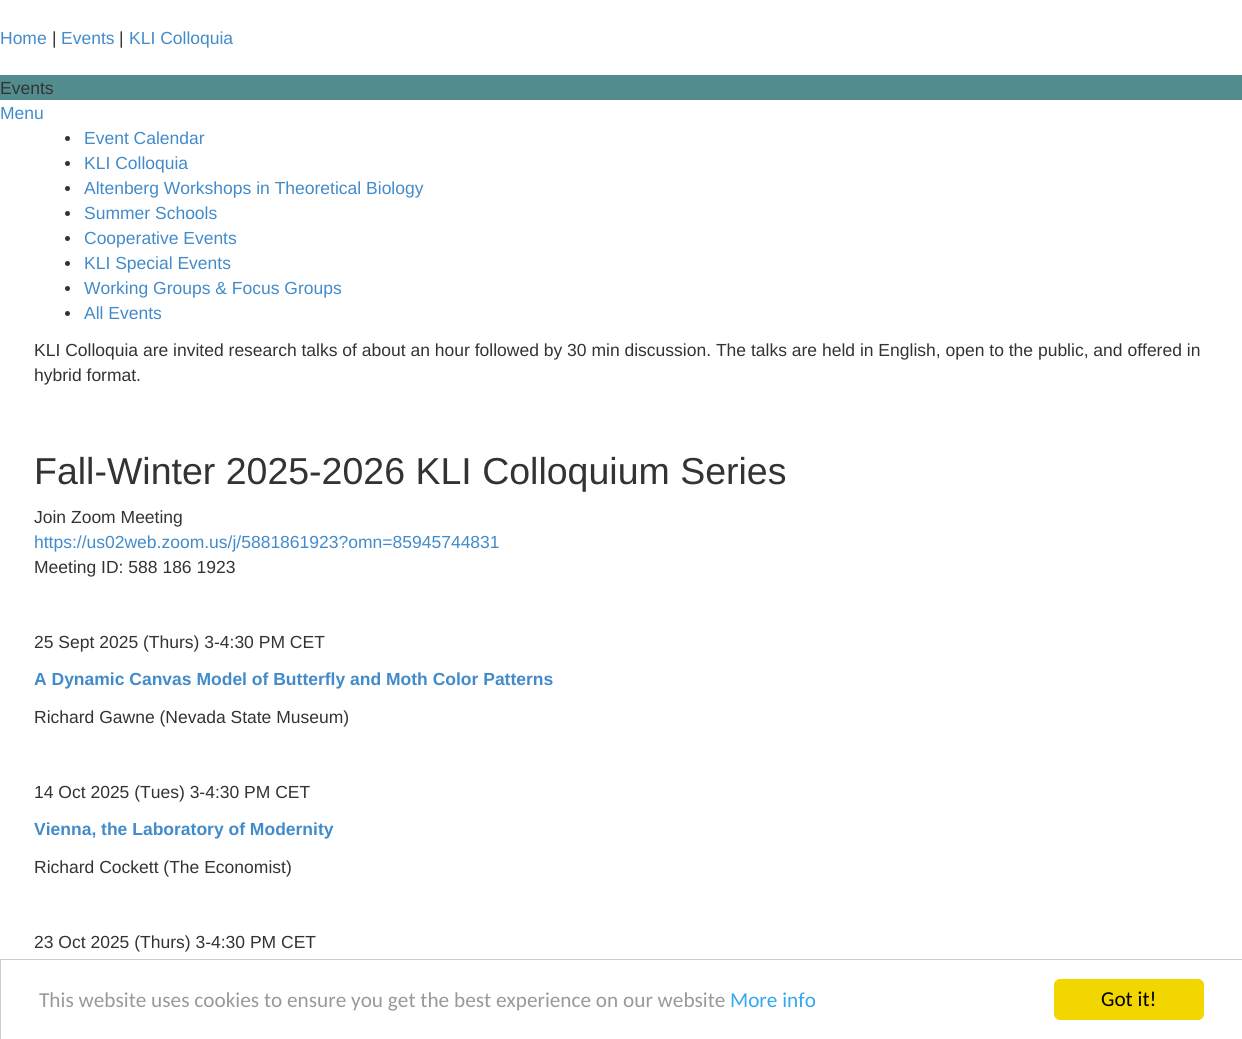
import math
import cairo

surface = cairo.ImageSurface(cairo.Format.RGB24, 1242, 1039)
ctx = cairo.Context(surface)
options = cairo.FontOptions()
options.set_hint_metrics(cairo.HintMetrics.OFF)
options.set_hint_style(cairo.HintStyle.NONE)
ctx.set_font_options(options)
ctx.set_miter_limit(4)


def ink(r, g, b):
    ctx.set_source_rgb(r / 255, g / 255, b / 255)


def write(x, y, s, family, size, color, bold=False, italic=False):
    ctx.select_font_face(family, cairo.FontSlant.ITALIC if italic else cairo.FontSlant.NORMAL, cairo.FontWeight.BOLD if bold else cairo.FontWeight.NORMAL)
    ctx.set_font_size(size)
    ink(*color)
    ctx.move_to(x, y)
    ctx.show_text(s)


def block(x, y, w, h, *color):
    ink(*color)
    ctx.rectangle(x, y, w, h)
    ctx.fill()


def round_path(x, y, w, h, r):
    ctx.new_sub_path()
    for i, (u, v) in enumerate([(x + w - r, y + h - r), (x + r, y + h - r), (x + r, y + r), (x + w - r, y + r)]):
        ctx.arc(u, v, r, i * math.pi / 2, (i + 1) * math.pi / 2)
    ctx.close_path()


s1 = dict(family="Liberation Sans", size=17.5, color=(66, 139, 202))
s2 = dict(family="Liberation Sans", size=17.5, color=(51, 51, 51))
s3 = dict(family="Liberation Sans", size=37.5, color=(51, 51, 51))
s4 = dict(family="Liberation Sans", size=17.5, color=(66, 139, 202), bold=True)
s5 = dict(family="Carlito", size=21.25, color=(153, 153, 153))
s6 = dict(family="Carlito", size=21.25, color=(49, 168, 240))
s7 = dict(family="Carlito", size=21.25, color=(0, 0, 0))

ink(255, 255, 255)
ctx.paint()
write(0, 44, "Home", **s1)
write(52, 44, "|", **s2)
write(61, 44, "Events", **s1)
write(119, 44, "|", **s2)
write(129, 44, "KLI Colloquia", **s1)
block(0, 75, 1242, 25, 82, 140, 142)
write(0, 94, "Events", **s2)
write(0, 119, "Menu", **s1)
ink(51, 51, 51)
ctx.new_path()
ctx.arc(67.5, 138.5, 2.5, 0, 2 * math.pi)
ctx.fill()
write(84, 144, "Event Calendar", **s1)
ink(51, 51, 51)
ctx.new_path()
ctx.arc(67.5, 163.5, 2.5, 0, 2 * math.pi)
ctx.fill()
write(84, 169, "KLI Colloquia", **s1)
ink(51, 51, 51)
ctx.new_path()
ctx.arc(67.5, 188.5, 2.5, 0, 2 * math.pi)
ctx.fill()
write(84, 194, "Altenberg Workshops in Theoretical Biology", **s1)
ink(51, 51, 51)
ctx.new_path()
ctx.arc(67.5, 213.5, 2.5, 0, 2 * math.pi)
ctx.fill()
write(84, 219, "Summer Schools", **s1)
ink(51, 51, 51)
ctx.new_path()
ctx.arc(67.5, 238.5, 2.5, 0, 2 * math.pi)
ctx.fill()
write(84, 244, "Cooperative Events", **s1)
ink(51, 51, 51)
ctx.new_path()
ctx.arc(67.5, 263.5, 2.5, 0, 2 * math.pi)
ctx.fill()
write(84, 269, "KLI Special Events", **s1)
ink(51, 51, 51)
ctx.new_path()
ctx.arc(67.5, 288.5, 2.5, 0, 2 * math.pi)
ctx.fill()
write(84, 294, "Working Groups & Focus Groups", **s1)
ink(51, 51, 51)
ctx.new_path()
ctx.arc(67.5, 313.5, 2.5, 0, 2 * math.pi)
ctx.fill()
write(84, 319, "All Events", **s1)
write(34, 356, "KLI Colloquia are invited research talks of about an hour followed by 30 min discussion. The talks are held in English, open to the public, and offered in", **s2)
write(34, 381, "hybrid format.", **s2)
write(34, 484, "Fall-Winter 2025-2026 KLI Colloquium Series", **s3)
write(34, 523, "Join Zoom Meeting", **s2)
write(34, 548, "https://us02web.zoom.us/j/5881861923?omn=85945744831", **s1)
write(34, 573, "Meeting ID: 588 186 1923", **s2)
write(34, 648, "25 Sept 2025 (Thurs) 3-4:30 PM CET", **s2)
write(34, 685, "A Dynamic Canvas Model of Butterfly and Moth Color Patterns", **s4)
write(34, 723, "Richard Gawne (Nevada State Museum)", **s2)
write(34, 798, "14 Oct 2025 (Tues) 3-4:30 PM CET", **s2)
write(34, 835, "Vienna, the Laboratory of Modernity", **s4)
write(34, 873, "Richard Cockett (The Economist)", **s2)
write(34, 948, "23 Oct 2025 (Thurs) 3-4:30 PM CET", **s2)
ctx.rectangle(0.5, 959.5, 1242, 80)
ink(204, 204, 204)
ctx.set_line_width(1)
ctx.stroke()
write(39, 1007, "This website uses cookies to ensure you get the best experience on our website", **s5)
write(730, 1007, "More info", **s6)
ink(241, 214, 0)
round_path(1054, 979, 150, 41, 6)
ctx.fill()
write(1101, 1006, "Got it!", **s7)
surface.write_to_png("screenshot.png")
